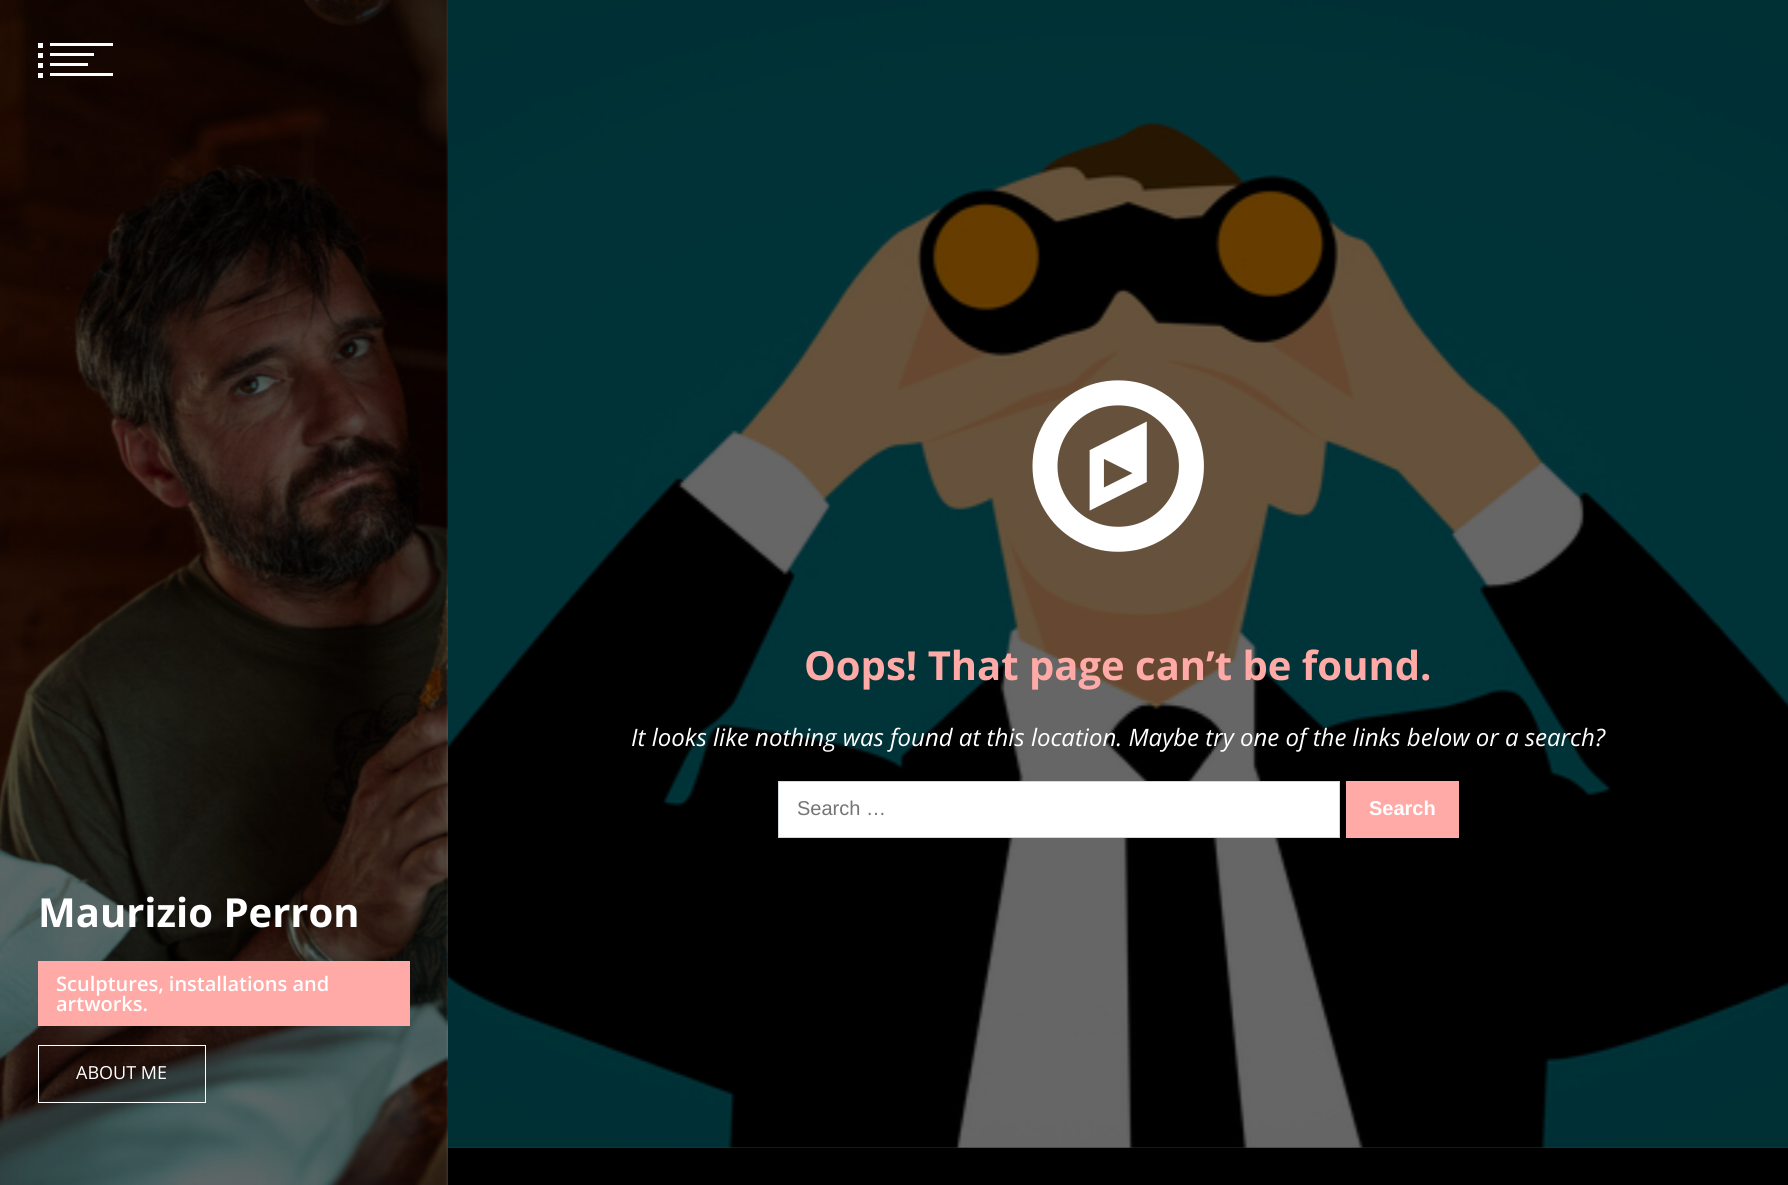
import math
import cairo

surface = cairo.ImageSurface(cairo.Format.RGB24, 1788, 1185)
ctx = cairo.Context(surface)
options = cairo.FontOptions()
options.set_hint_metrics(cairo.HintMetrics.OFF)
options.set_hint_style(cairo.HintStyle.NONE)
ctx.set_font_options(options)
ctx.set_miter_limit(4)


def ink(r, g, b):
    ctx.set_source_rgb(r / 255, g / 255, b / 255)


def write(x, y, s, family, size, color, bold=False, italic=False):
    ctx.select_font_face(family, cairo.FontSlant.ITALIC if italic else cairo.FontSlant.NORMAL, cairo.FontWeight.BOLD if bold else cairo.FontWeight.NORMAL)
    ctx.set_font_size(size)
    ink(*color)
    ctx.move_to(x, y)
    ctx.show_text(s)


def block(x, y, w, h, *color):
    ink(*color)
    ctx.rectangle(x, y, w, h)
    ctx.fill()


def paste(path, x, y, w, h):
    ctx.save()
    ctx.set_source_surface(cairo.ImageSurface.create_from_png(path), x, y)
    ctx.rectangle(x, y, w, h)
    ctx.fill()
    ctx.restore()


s1 = dict(family="Open Sans", size=40, color=(255, 170, 166), bold=True)
s2 = dict(family="Open Sans", size=24, color=(255, 255, 255), italic=True)
s3 = dict(family="Liberation Sans", size=20, color=(117, 117, 117))
s4 = dict(family="Liberation Sans", size=20, color=(255, 255, 255), bold=True)
s5 = dict(family="Open Sans", size=40, color=(255, 255, 255), bold=True)
s6 = dict(family="Open Sans SemiBold", size=20, color=(255, 255, 255))
s7 = dict(family="Open Sans", size=18, color=(255, 255, 255))

ink(255, 255, 255)
ctx.paint()
block(448, 1147, 1340, 1, 49, 49, 49)
paste("pic1.png", 448, 0, 1340, 1148)
paste("pic2.png", 1032, 380, 172, 172)
write(804, 680, "Oops! That page can’t be found.", **s1)
write(631, 746, "It looks like nothing was found at this location. Maybe try one of the links below or a search?", **s2)
ctx.rectangle(778.5, 781.5, 561, 56)
ctx.fill_preserve()
ink(207, 216, 220)
ctx.set_line_width(1)
ctx.stroke()
write(797, 815, "Search …", **s3)
block(1346, 781, 113, 57, 255, 170, 166)
write(1369, 815, "Search", **s4)
block(448, 1148, 1340, 37, 0, 0, 0)
paste("pic3.png", 0, 0, 448, 1185)
block(38, 43, 5, 5, 255, 255, 255)
block(50, 43, 63, 3, 255, 255, 255)
block(38, 53, 5, 5, 255, 255, 255)
block(50, 53, 44, 3, 255, 255, 255)
block(38, 63, 5, 5, 255, 255, 255)
block(50, 63, 38, 3, 255, 255, 255)
block(38, 73, 5, 5, 255, 255, 255)
block(50, 73, 63, 3, 255, 255, 255)
write(38, 927, "Maurizio Perron", **s5)
block(38, 961, 372, 65, 255, 170, 166)
write(56, 991, "Sculptures, installations and", **s6)
write(56, 1011, "artworks.", **s6)
ctx.rectangle(38.5, 1045.5, 167, 57)
ctx.stroke()
write(76, 1079, "ABOUT ME", **s7)
surface.write_to_png("screenshot.png")
